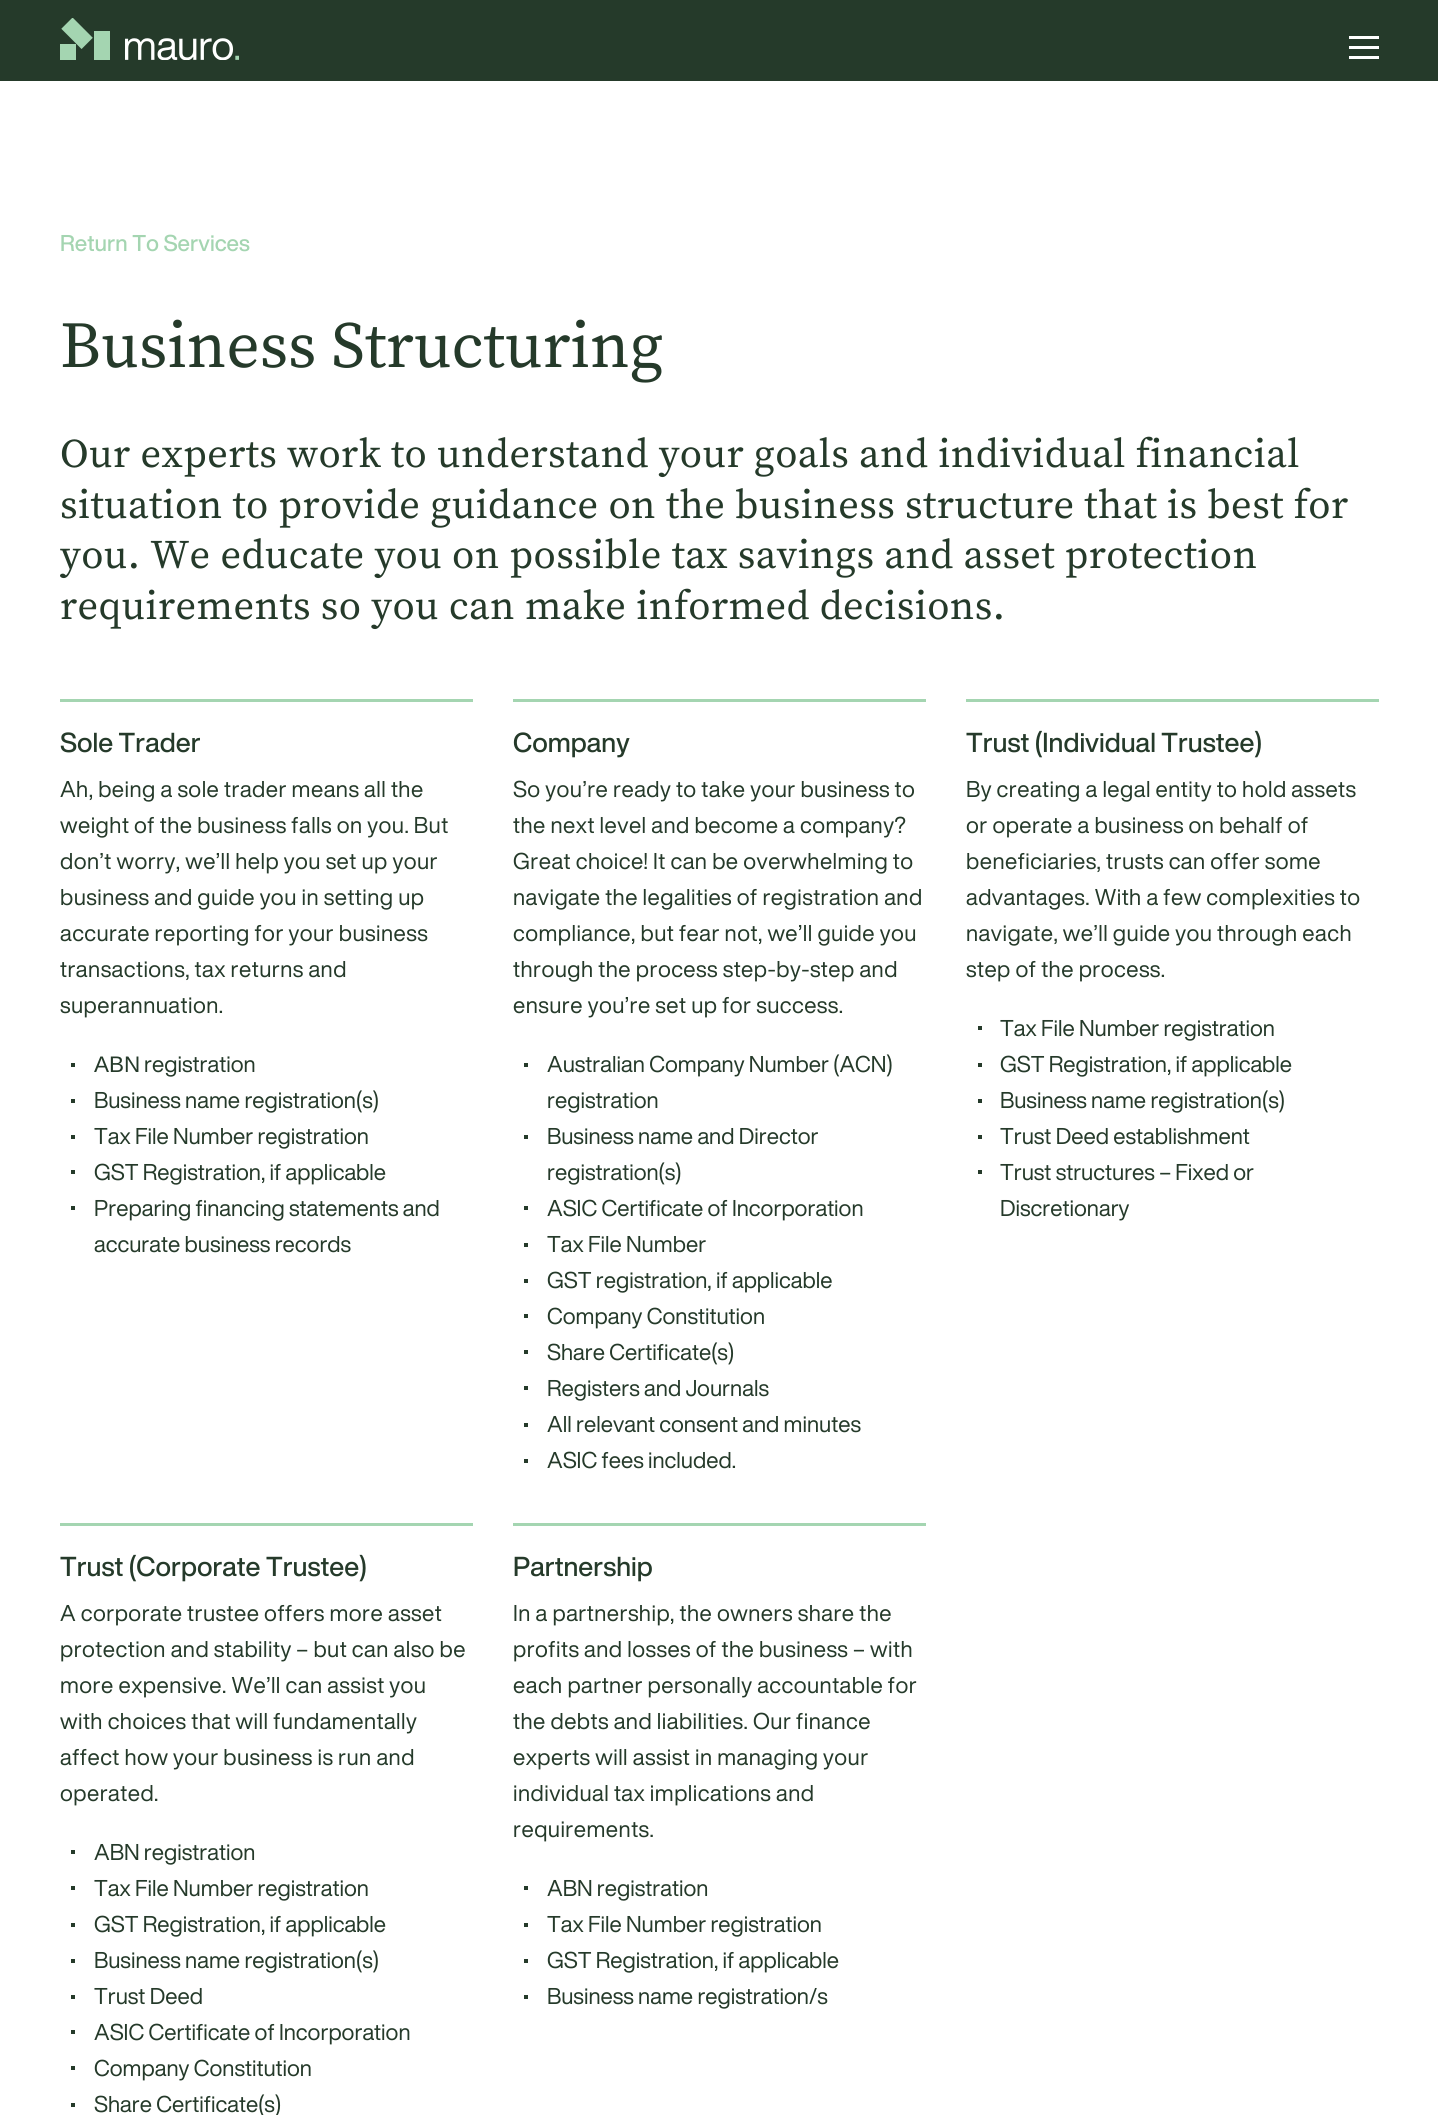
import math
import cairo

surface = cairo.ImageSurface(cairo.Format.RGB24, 1438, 2115)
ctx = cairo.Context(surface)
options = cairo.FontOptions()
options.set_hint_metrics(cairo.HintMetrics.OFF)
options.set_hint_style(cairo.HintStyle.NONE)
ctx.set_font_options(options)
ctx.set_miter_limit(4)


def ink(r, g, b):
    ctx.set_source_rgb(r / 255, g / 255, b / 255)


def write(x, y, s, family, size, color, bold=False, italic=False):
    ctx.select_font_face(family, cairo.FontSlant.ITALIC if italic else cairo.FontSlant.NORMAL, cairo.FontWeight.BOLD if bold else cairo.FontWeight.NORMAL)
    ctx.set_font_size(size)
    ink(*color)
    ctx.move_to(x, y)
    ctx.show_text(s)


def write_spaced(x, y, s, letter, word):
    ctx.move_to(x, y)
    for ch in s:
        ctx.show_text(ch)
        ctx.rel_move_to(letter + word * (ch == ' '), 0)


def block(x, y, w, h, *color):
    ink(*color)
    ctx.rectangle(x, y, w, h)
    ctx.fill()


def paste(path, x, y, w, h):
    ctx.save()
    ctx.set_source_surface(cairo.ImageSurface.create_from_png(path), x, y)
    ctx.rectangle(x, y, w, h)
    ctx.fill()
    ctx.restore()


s1 = dict(family="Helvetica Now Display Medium", size=22.5, color=(164, 213, 177))
s2 = dict(family="Source Serif Pro", size=65.25, color=(37, 58, 42))
s3 = dict(family="Helvetica Now Display Medium", size=27, color=(37, 58, 42))
s4 = dict(family="Liberation Sans", size=22.5, color=(37, 58, 42))
s5 = dict(family="Helvetica Now Display", size=22.5, color=(37, 58, 42))

ink(255, 255, 255)
ctx.paint()
block(0, 0, 1438, 81, 37, 58, 42)
paste("pic1.png", 60, 18, 179, 42)
block(1349, 36, 30, 3, 255, 255, 255)
block(1349, 46, 30, 3, 255, 255, 255)
block(1349, 56, 30, 3, 255, 255, 255)
write(60, 251, "Return To Services", **s1)
write(60, 367, "Business Structuring", **s2)
ctx.set_font_size(40.5)
write_spaced(60, 467, "Our experts work to understand your goals and individual financial", 0.4, 0)
write_spaced(60, 518, "situation to provide guidance on the business structure that is best for", 0.4, 0)
write_spaced(60, 568, "you. We educate you on possible tax savings and asset protection", 0.4, 0)
write_spaced(60, 619, "requirements so you can make informed decisions.", 0.4, 0)
block(60, 699, 413, 3, 164, 213, 177)
write(60, 752, "Sole Trader", **s3)
ctx.select_font_face("Helvetica Now Display")
ctx.set_font_size(22.5)
write_spaced(60, 797, "Ah, being a sole trader means all the", 0.45, 0)
write_spaced(60, 833, "weight of the business falls on you. But", 0.45, 0)
write_spaced(60, 869, "don’t worry, we’ll help you set up your", 0.45, 0)
write_spaced(60, 905, "business and guide you in setting up", 0.45, 0)
write_spaced(60, 941, "accurate reporting for your business", 0.45, 0)
write_spaced(60, 977, "transactions, tax returns and", 0.45, 0)
write_spaced(60, 1013, "superannuation.", 0.45, 0)
block(71, 1063, 4, 4, 37, 58, 42)
write(94, 1072, "ΑΒΝ", **s4)
write(144, 1072, "registration", **s5)
block(71, 1099, 4, 4, 37, 58, 42)
write(94, 1108, "Business name registration(s)", **s5)
block(71, 1135, 4, 4, 37, 58, 42)
write(94, 1144, "Tax File Number registration", **s5)
block(71, 1170, 4, 4, 37, 58, 42)
write(94, 1180, "GST Registration, if applicable", **s5)
block(71, 1206, 4, 4, 37, 58, 42)
write(94, 1216, "Preparing financing statements and", **s5)
write(94, 1252, "accurate business records", **s5)
block(513, 699, 413, 3, 164, 213, 177)
write(513, 752, "Company", **s3)
ctx.select_font_face("Helvetica Now Display")
ctx.set_font_size(22.5)
write_spaced(513, 797, "So you’re ready to take your business to", 0.45, 0)
write_spaced(513, 833, "the next level and become a company?", 0.45, 0)
write_spaced(513, 869, "Great choice! It can be overwhelming to", 0.45, 0)
write_spaced(513, 905, "navigate the legalities of registration and", 0.45, 0)
write_spaced(513, 941, "compliance, but fear not, we’ll guide you", 0.45, 0)
write_spaced(513, 977, "through the process step-by-step and", 0.45, 0)
write_spaced(513, 1013, "ensure you’re set up for success.", 0.45, 0)
block(524, 1063, 4, 4, 37, 58, 42)
write(547, 1072, "Australian Company Number (ACN)", **s5)
write(547, 1108, "registration", **s5)
block(524, 1135, 4, 4, 37, 58, 42)
write(547, 1144, "Business name and Director", **s5)
write(547, 1180, "registration(s)", **s5)
block(524, 1206, 4, 4, 37, 58, 42)
write(547, 1216, "ASIC Certificate of Incorporation", **s5)
block(524, 1243, 4, 4, 37, 58, 42)
write(547, 1252, "Tax File Number", **s5)
block(524, 1279, 4, 4, 37, 58, 42)
write(547, 1288, "GST registration, if applicable", **s5)
block(524, 1314, 4, 4, 37, 58, 42)
write(547, 1324, "Company Constitution", **s5)
block(524, 1350, 4, 4, 37, 58, 42)
write(547, 1360, "Share Certificate(s)", **s5)
block(524, 1386, 4, 4, 37, 58, 42)
write(547, 1396, "Registers and Journals", **s5)
block(524, 1423, 4, 4, 37, 58, 42)
write(547, 1432, "All relevant consent and minutes", **s5)
block(524, 1459, 4, 4, 37, 58, 42)
write(547, 1468, "ASIC fees included.", **s5)
block(966, 699, 413, 3, 164, 213, 177)
write(966, 752, "Trust (Individual Trustee)", **s3)
ctx.select_font_face("Helvetica Now Display")
ctx.set_font_size(22.5)
write_spaced(966, 797, "By creating a legal entity to hold assets", 0.45, 0)
write_spaced(966, 833, "or operate a business on behalf of", 0.45, 0)
write_spaced(966, 869, "beneficiaries, trusts can offer some", 0.45, 0)
write_spaced(966, 905, "advantages. With a few complexities to", 0.45, 0)
write_spaced(966, 941, "navigate, we’ll guide you through each", 0.45, 0)
write_spaced(966, 977, "step of the process.", 0.45, 0)
block(978, 1026, 4, 4, 37, 58, 42)
write(1000, 1036, "Tax File Number registration", **s5)
block(978, 1063, 4, 4, 37, 58, 42)
write(1000, 1072, "GST Registration, if applicable", **s5)
block(978, 1099, 4, 4, 37, 58, 42)
write(1000, 1108, "Business name registration(s)", **s5)
block(978, 1135, 4, 4, 37, 58, 42)
write(1000, 1144, "Trust Deed establishment", **s5)
block(978, 1170, 4, 4, 37, 58, 42)
write(1000, 1180, "Trust structures – Fixed or", **s5)
write(1000, 1216, "Discretionary", **s5)
block(60, 1523, 413, 3, 164, 213, 177)
write(60, 1576, "Trust (Corporate Trustee)", **s3)
ctx.select_font_face("Helvetica Now Display")
ctx.set_font_size(22.5)
write_spaced(60, 1621, "A corporate trustee offers more asset", 0.45, 0)
write_spaced(60, 1657, "protection and stability – but can also be", 0.45, 0)
write_spaced(60, 1693, "more expensive. We’ll can assist you", 0.45, 0)
write_spaced(60, 1729, "with choices that will fundamentally", 0.45, 0)
write_spaced(60, 1765, "affect how your business is run and", 0.45, 0)
write_spaced(60, 1801, "operated.", 0.45, 0)
block(71, 1850, 4, 4, 37, 58, 42)
write(94, 1860, "ABN registration", **s5)
block(71, 1886, 4, 4, 37, 58, 42)
write(94, 1896, "Tax File Number registration", **s5)
block(71, 1923, 4, 4, 37, 58, 42)
write(94, 1932, "GST Registration, if applicable", **s5)
block(71, 1959, 4, 4, 37, 58, 42)
write(94, 1968, "Business name registration(s)", **s5)
block(71, 1995, 4, 4, 37, 58, 42)
write(94, 2004, "Trust Deed", **s5)
block(71, 2030, 4, 4, 37, 58, 42)
write(94, 2040, "ASIC Certificate of Incorporation", **s5)
block(71, 2066, 4, 4, 37, 58, 42)
write(94, 2076, "Company Constitution", **s5)
block(71, 2103, 4, 4, 37, 58, 42)
write(94, 2112, "Share Certificate(s)", **s5)
block(513, 1523, 413, 3, 164, 213, 177)
write(513, 1576, "Partnership", **s3)
ctx.select_font_face("Helvetica Now Display")
ctx.set_font_size(22.5)
write_spaced(513, 1621, "In a partnership, the owners share the", 0.45, 0)
write_spaced(513, 1657, "profits and losses of the business – with", 0.45, 0)
write_spaced(513, 1693, "each partner personally accountable for", 0.45, 0)
write_spaced(513, 1729, "the debts and liabilities. Our finance", 0.45, 0)
write_spaced(513, 1765, "experts will assist in managing your", 0.45, 0)
write_spaced(513, 1801, "individual tax implications and", 0.45, 0)
write_spaced(513, 1837, "requirements.", 0.45, 0)
block(524, 1886, 4, 4, 37, 58, 42)
write(547, 1896, "ABN registration", **s5)
block(524, 1923, 4, 4, 37, 58, 42)
write(547, 1932, "Tax File Number registration", **s5)
block(524, 1959, 4, 4, 37, 58, 42)
write(547, 1968, "GST Registration, if applicable", **s5)
block(524, 1995, 4, 4, 37, 58, 42)
write(547, 2004, "Business name registration/s", **s5)
surface.write_to_png("screenshot.png")
